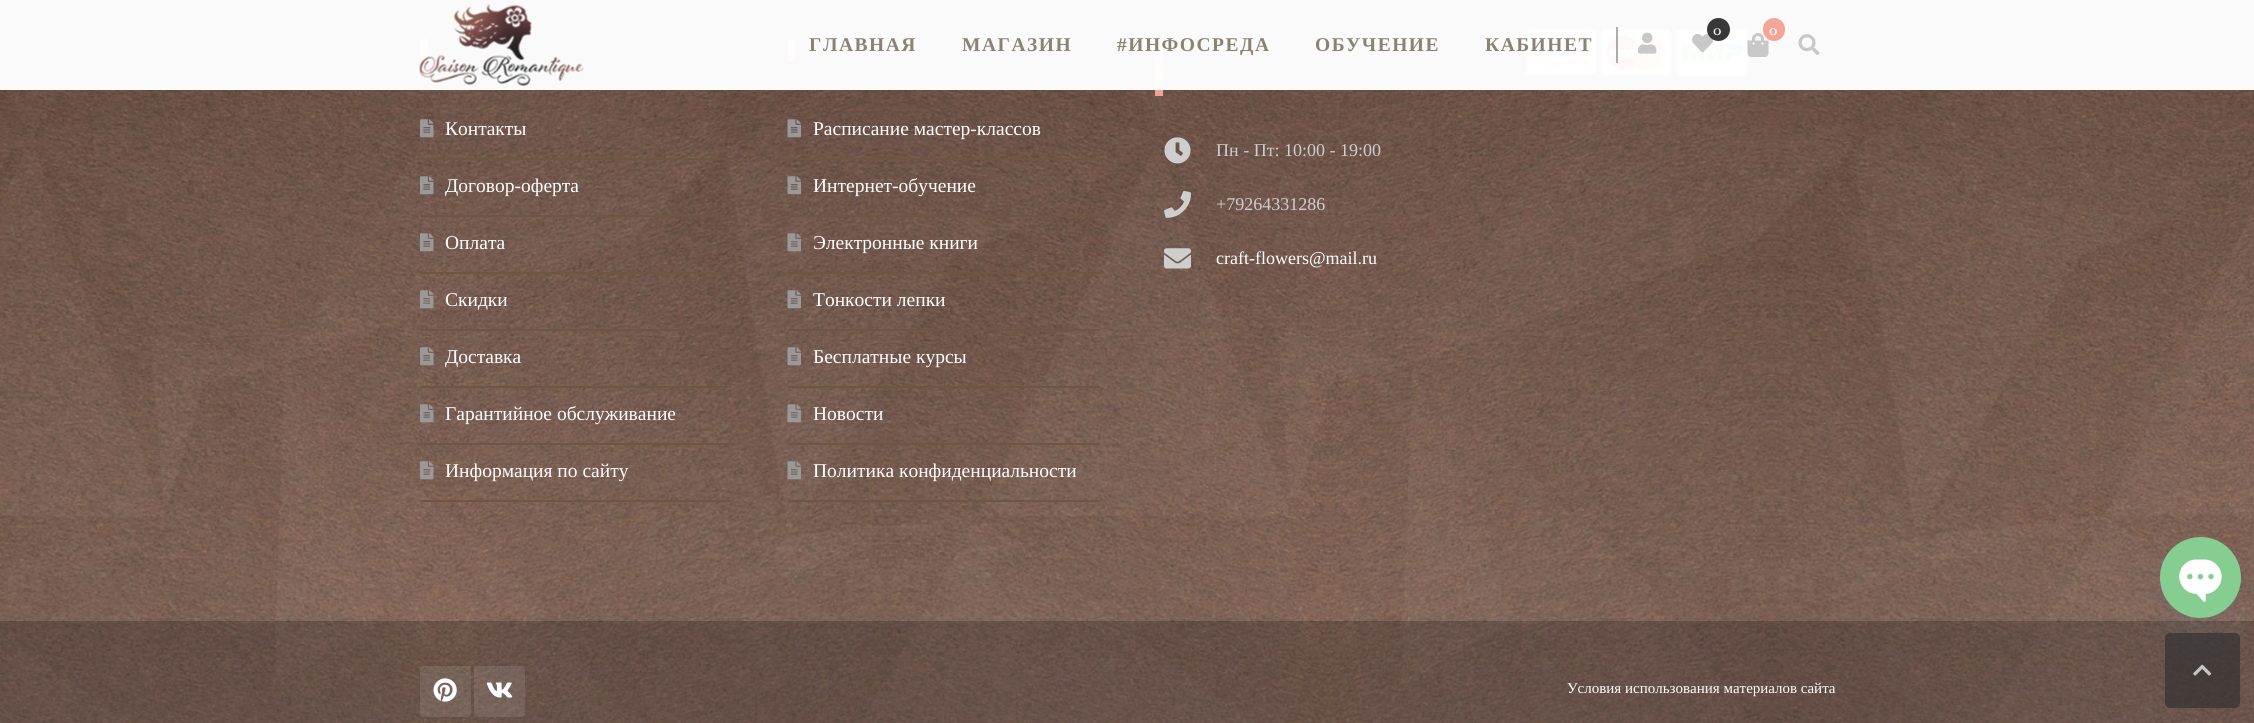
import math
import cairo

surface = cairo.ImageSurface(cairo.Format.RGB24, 2254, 723)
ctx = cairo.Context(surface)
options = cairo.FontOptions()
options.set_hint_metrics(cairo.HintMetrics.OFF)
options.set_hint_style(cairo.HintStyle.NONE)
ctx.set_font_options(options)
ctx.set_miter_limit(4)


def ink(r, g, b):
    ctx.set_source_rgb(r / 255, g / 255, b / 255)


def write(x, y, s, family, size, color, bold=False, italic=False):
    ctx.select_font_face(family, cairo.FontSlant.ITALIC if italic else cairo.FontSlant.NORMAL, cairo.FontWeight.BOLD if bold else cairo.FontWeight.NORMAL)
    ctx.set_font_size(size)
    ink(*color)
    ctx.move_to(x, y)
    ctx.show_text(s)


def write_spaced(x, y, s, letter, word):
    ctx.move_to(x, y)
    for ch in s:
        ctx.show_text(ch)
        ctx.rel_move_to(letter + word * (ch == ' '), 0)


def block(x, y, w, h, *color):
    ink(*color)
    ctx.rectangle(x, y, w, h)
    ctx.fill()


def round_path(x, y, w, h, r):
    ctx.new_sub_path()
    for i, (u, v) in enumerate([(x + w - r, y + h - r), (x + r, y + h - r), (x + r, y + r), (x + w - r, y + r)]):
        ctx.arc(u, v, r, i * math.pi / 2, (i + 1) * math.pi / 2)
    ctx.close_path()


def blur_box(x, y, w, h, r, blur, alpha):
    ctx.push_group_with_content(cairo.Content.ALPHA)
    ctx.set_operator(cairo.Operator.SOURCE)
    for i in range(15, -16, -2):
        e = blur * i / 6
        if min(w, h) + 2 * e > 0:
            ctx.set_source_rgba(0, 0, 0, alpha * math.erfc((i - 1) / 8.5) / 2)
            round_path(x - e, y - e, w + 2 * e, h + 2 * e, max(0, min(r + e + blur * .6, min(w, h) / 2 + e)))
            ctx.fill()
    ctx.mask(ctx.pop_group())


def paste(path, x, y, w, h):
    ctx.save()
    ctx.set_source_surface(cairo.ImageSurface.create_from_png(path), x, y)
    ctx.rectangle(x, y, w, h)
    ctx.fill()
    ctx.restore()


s1 = dict(family="Radley", size=15, color=(249, 249, 249))
s2 = dict(family="Radley", size=15, color=(255, 255, 255))
s3 = dict(family="Liberation Serif", size=19.5, color=(255, 255, 255))
s4 = dict(family="Liberation Serif", size=18, color=(206, 206, 206))
s5 = dict(family="Liberation Serif", size=18, color=(255, 255, 255))
s6 = dict(family="Liberation Serif", size=15, color=(255, 255, 255))

ink(255, 255, 255)
ctx.paint()
paste("pic6.png", 0, 0, 2254, 723)
paste("pic7.png", 1525, 28, 223, 49)
block(420, 39, 8, 23, 243, 163, 149)
block(788, 39, 7, 23, 243, 163, 149)
block(1155, 39, 8, 57, 243, 163, 149)
ctx.set_source_rgba(1, 1, 1, 0.97)
ctx.rectangle(0, 0, 2254, 90)
ctx.fill()
paste("pic1.png", 419, 4, 165, 82)
ctx.set_source_rgba(0.455, 0.455, 0.455, 0.58)
ctx.rectangle(1616, 27, 2, 36)
ctx.fill()
paste("pic2.png", 1638, 32, 19, 22)
paste("pic3.png", 1692, 34, 21, 19)
ctx.set_source_rgba(0.2, 0.2, 0.2, 0.97)
ctx.arc(1718.5, 29.5, 11.5, 0, 2 * math.pi)
ctx.fill()
write(1713, 35, "0", **s1)
paste("pic4.png", 1747, 33, 22, 24)
ink(243, 166, 152)
round_path(1763, 18, 22, 23, 11)
ctx.fill()
write(1769, 35, "0", **s2)
paste("pic5.png", 1798, 34, 22, 21)
ctx.select_font_face("Liberation Serif", cairo.FontSlant.NORMAL, cairo.FontWeight.BOLD)
ctx.set_font_size(19.5)
ink(139, 131, 114)
write_spaced(809, 51, "ГЛАВНАЯ", 1.5, 0)
write_spaced(962, 51, "МАГАЗИН", 1.5, 0)
write_spaced(1117, 51, "#ИНФОСРЕДА", 1.5, 0)
write_spaced(1315, 51, "ОБУЧЕНИЕ", 1.5, 0)
write_spaced(1485, 51, "КАБИНЕТ", 1.5, 0)
block(420, 158, 311, 2, 110, 85, 68)
paste("pic8.png", 420, 119, 14, 19)
write(445, 135, "Контакты", **s3)
block(420, 215, 311, 2, 110, 85, 68)
paste("pic9.png", 420, 176, 14, 19)
write(445, 192, "Договор-оферта", **s3)
block(420, 272, 311, 2, 110, 85, 68)
paste("pic10.png", 420, 233, 14, 19)
write(445, 249, "Оплата", **s3)
block(420, 329, 311, 2, 110, 85, 68)
paste("pic11.png", 420, 290, 14, 19)
write(445, 306, "Скидки", **s3)
block(420, 386, 311, 2, 110, 85, 68)
paste("pic12.png", 420, 347, 14, 19)
write(445, 363, "Доставка", **s3)
block(420, 443, 311, 2, 110, 85, 68)
paste("pic13.png", 420, 404, 14, 19)
write(445, 420, "Гарантийное обслуживание", **s3)
block(420, 500, 311, 2, 110, 85, 68)
paste("pic14.png", 420, 461, 14, 19)
write(445, 477, "Информация по сайту", **s3)
block(788, 158, 312, 2, 110, 85, 68)
paste("pic15.png", 787, 119, 14, 19)
write(813, 135, "Расписание мастер-классов", **s3)
block(788, 215, 312, 2, 110, 85, 68)
paste("pic16.png", 787, 176, 14, 19)
write(813, 192, "Интернет-обучение", **s3)
block(788, 272, 312, 2, 110, 85, 68)
paste("pic17.png", 787, 233, 14, 19)
write(813, 249, "Электронные книги", **s3)
block(788, 329, 312, 2, 110, 85, 68)
paste("pic18.png", 787, 290, 14, 19)
write(813, 306, "Тонкости лепки", **s3)
block(788, 386, 312, 2, 110, 85, 68)
paste("pic19.png", 787, 347, 14, 19)
write(813, 363, "Бесплатные курсы", **s3)
block(788, 443, 312, 2, 110, 85, 68)
paste("pic20.png", 787, 404, 14, 19)
write(813, 420, "Новости", **s3)
block(788, 500, 312, 2, 110, 85, 68)
paste("pic21.png", 787, 461, 14, 19)
write(813, 477, "Политика конфиденциальности", **s3)
paste("pic22.png", 1164, 137, 27, 27)
write(1216, 156, "Пн - Пт: 10:00 - 19:00", **s4)
paste("pic23.png", 1164, 190, 28, 28)
write(1216, 210, "+79264331286", **s4)
paste("pic24.png", 1164, 248, 27, 21)
write(1216, 264, "craft-flowers@mail.ru", **s5)
ctx.set_source_rgba(0, 0, 0, 0.2)
ctx.rectangle(0, 621, 2254, 102)
ctx.fill()
ctx.set_source_rgba(1, 1, 1, 0.1)
round_path(420, 666, 51, 51, 3)
ctx.fill()
paste("pic25.png", 433, 678, 24, 24)
round_path(474, 666, 51, 51, 3)
ctx.fill()
paste("pic26.png", 486, 682, 27, 16)
write(1567, 693, "Условия использования материалов сайта", **s6)
ink(73, 104, 126)
blur_box(2160, 561, 81, 81, 40.5, 18, 0.16)
paste("pic27.png", 2160, 537, 81, 81)
ctx.set_source_rgba(0.2, 0.2, 0.2, 0.7)
round_path(2165, 633, 75, 75, 5)
ctx.fill()
paste("pic28.png", 2193, 664, 19, 12)
surface.write_to_png("screenshot.png")
